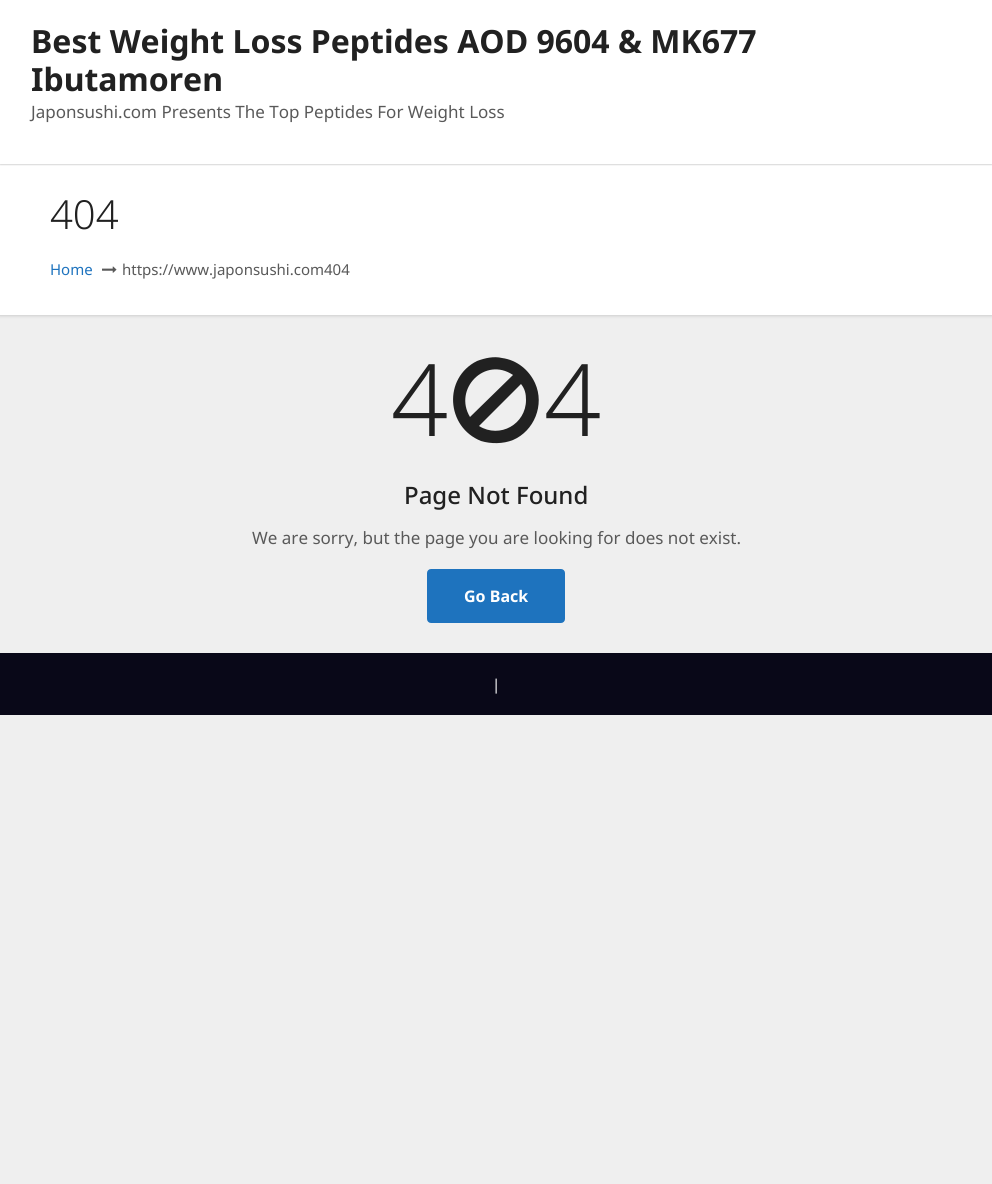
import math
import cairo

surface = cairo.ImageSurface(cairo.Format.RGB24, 992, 1184)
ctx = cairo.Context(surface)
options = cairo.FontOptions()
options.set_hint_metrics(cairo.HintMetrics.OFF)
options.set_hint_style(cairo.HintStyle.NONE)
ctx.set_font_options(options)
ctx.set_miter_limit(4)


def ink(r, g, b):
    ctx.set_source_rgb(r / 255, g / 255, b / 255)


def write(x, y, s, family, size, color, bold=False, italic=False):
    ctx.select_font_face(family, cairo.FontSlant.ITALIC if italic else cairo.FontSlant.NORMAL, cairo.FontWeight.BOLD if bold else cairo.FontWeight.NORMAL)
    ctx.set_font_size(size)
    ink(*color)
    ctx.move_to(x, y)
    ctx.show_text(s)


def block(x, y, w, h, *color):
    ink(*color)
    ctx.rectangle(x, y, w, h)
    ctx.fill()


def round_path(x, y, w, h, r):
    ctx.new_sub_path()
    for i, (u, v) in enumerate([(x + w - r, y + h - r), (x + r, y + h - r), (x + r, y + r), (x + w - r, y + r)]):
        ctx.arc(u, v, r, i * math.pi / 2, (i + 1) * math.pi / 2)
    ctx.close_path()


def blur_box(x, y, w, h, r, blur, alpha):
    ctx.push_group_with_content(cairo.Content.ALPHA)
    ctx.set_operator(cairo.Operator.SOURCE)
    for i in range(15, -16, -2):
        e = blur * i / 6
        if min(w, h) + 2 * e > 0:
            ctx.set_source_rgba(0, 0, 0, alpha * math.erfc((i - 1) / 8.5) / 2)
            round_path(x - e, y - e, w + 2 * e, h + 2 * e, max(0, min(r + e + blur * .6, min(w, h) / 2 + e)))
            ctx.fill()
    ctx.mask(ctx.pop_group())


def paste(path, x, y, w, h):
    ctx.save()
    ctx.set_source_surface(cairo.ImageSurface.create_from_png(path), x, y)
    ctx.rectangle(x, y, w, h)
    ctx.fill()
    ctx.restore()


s1 = dict(family="Noto Sans", size=32, color=(33, 33, 33), bold=True)
s2 = dict(family="Noto Sans", size=17, color=(89, 89, 89))
s3 = dict(family="Noto Sans Light", size=40, color=(33, 33, 33))
s4 = dict(family="Noto Sans", size=15, color=(30, 115, 190))
s5 = dict(family="Noto Sans", size=15, color=(89, 89, 89))
s6 = dict(family="Noto Sans Light", size=100, color=(33, 33, 33))
s7 = dict(family="Noto Sans Medium", size=24, color=(33, 33, 33))
s8 = dict(family="Noto Sans", size=16, color=(255, 255, 255), bold=True)
s9 = dict(family="Noto Sans", size=15, color=(255, 255, 255))

ink(239, 239, 239)
ctx.paint()
ink(0, 0, 0)
blur_box(0, 165, 992, 151, 0, 1.5, 0.15)
block(0, 164, 992, 151, 255, 255, 255)
ink(0, 0, 0)
blur_box(0, 1, 992, 164, 0, 0.5, 0.15)
block(0, 0, 992, 164, 255, 255, 255)
write(31, 53, "Best Weight Loss Peptides AOD 9604 & MK677", **s1)
write(31, 91, "Ibutamoren", **s1)
write(31, 118, "Japonsushi.com Presents The Top Peptides For Weight Loss", **s2)
write(50, 229, "404", **s3)
write(50, 275, "Home", **s4)
paste("pic1.png", 102, 266, 15, 7)
write(122, 275, "https://www.japonsushi.com404", **s5)
write(391, 436, "4", **s6)
ctx.new_path()
ctx.move_to(526, 400)
ctx.curve_to(526, 394, 525, 389, 521, 384)
ctx.line_to(479, 426)
ctx.curve_to(500, 439, 526, 424, 526, 400)
ctx.close_path()
ctx.move_to(470, 417)
ctx.line_to(513, 375)
ctx.curve_to(485, 356, 453, 389, 470, 417)
ctx.close_path()
ctx.move_to(535, 383)
ctx.curve_to(545, 405, 534, 431, 513, 440)
ctx.curve_to(503, 444, 491, 444, 481, 441)
ctx.curve_to(446, 427, 443, 378, 477, 361)
ctx.curve_to(485, 358, 494, 356, 502, 358)
ctx.curve_to(517, 360, 529, 370, 535, 383)
ctx.close_path()
ctx.fill()
write(544, 436, "4", **s6)
write(404, 504, "Page Not Found", **s7)
write(252, 544, "We are sorry, but the page you are looking for does not exist.", **s2)
ink(30, 115, 190)
round_path(428, 570, 136, 52, 3)
ctx.fill_preserve()
ctx.stroke()
write(464, 602, "Go Back", **s8)
block(0, 653, 992, 62, 9, 8, 24)
write(492, 690, "|", **s9)
surface.write_to_png("screenshot.png")
